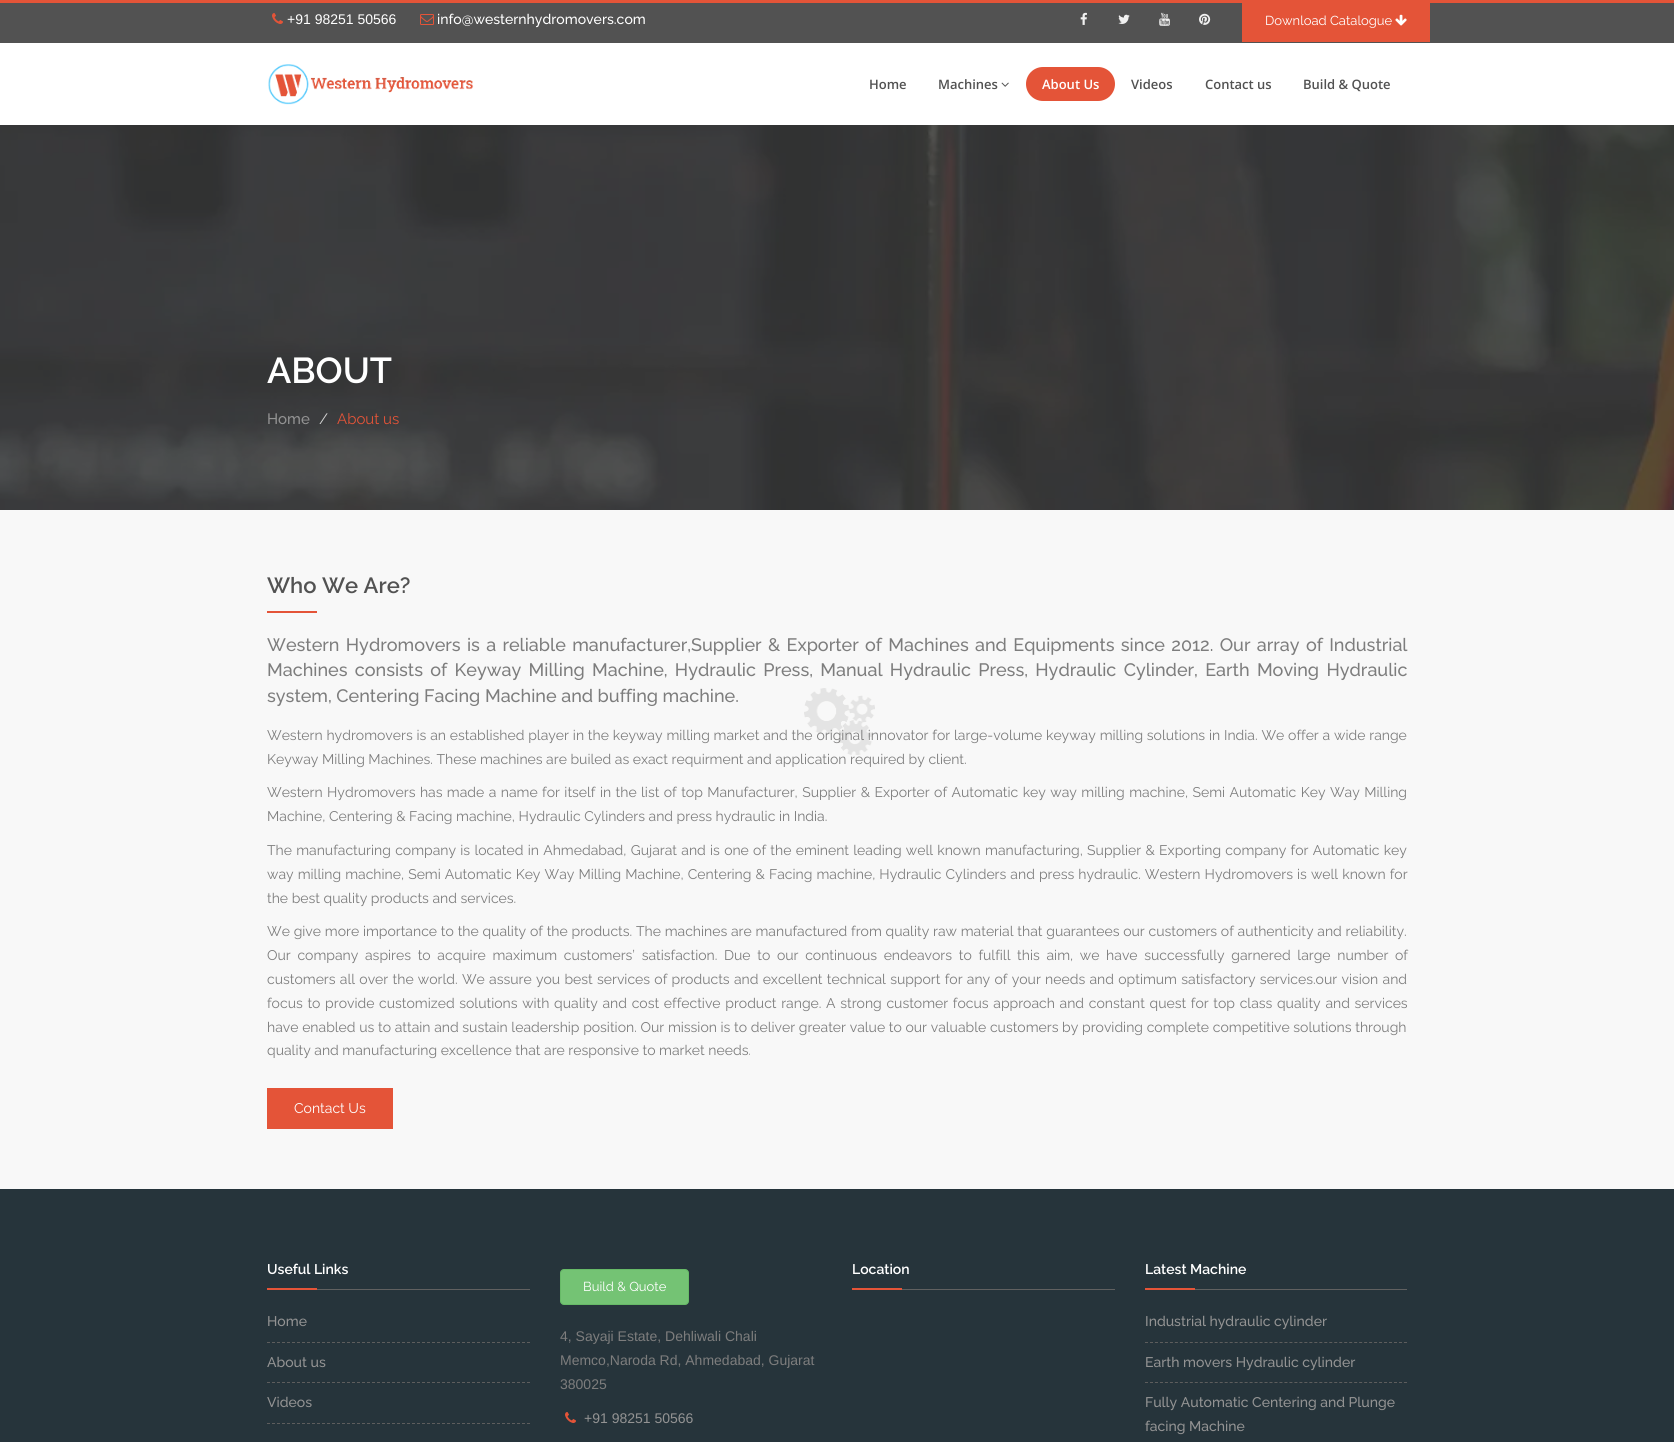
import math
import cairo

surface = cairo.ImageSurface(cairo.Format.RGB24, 1674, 1442)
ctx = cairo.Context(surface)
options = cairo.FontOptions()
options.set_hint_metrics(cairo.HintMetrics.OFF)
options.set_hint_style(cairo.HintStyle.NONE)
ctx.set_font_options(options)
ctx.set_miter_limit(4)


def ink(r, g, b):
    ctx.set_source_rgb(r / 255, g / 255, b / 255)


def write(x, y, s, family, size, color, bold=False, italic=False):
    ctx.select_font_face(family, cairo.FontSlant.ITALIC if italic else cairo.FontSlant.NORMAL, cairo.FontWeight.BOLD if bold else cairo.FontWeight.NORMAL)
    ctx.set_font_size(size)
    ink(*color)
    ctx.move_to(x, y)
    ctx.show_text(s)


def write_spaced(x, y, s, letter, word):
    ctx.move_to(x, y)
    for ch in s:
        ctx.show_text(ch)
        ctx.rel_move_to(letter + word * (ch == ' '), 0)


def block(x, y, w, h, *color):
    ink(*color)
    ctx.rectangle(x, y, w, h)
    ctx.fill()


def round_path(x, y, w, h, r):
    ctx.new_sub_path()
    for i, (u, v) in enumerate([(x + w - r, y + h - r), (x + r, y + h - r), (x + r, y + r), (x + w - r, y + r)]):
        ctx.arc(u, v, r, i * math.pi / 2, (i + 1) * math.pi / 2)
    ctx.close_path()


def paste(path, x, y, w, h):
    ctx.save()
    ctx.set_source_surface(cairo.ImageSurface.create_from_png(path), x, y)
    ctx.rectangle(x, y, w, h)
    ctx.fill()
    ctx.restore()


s1 = dict(family="Liberation Sans", size=14, color=(255, 255, 255))
s2 = dict(family="Raleway Medium", size=14, color=(255, 255, 255))
s3 = dict(family="Raleway", size=13, color=(255, 255, 255))
s4 = dict(family="Open Sans SemiBold", size=13, color=(82, 82, 82))
s5 = dict(family="Open Sans SemiBold", size=13, color=(255, 255, 255))
s6 = dict(family="Raleway SemiBold", size=36, color=(255, 255, 255))
s7 = dict(family="Raleway Medium", size=15, color=(147, 147, 147))
s8 = dict(family="Raleway", size=15, color=(212, 212, 212))
s9 = dict(family="Raleway", size=15, color=(228, 84, 56))
s10 = dict(family="Raleway SemiBold", size=22, color=(82, 82, 82))
s11 = dict(family="Raleway Medium", size=18, color=(125, 125, 125))
s12 = dict(family="Raleway", size=14, color=(125, 125, 125))
s13 = dict(family="Raleway", size=14, color=(255, 255, 255))
s14 = dict(family="Raleway SemiBold", size=14, color=(255, 255, 255))
s15 = dict(family="Raleway Medium", size=14, color=(147, 147, 147))
s16 = dict(family="Liberation Sans", size=14, color=(125, 125, 125))
s17 = dict(family="Liberation Sans", size=14, color=(147, 147, 147))

ink(255, 255, 255)
ctx.paint()
block(0, 3, 1674, 40, 82, 82, 82)
block(0, 0, 1674, 3, 228, 84, 56)
paste("pic1.png", 272, 13, 11, 11)
write(287, 24, "+91 98251 50566", **s1)
paste("pic2.png", 420, 14, 14, 11)
write(437, 24, "info@westernhydromovers.com", **s2)
paste("pic3.png", 1080, 12, 7, 13)
paste("pic4.png", 1118, 14, 12, 10)
paste("pic5.png", 1159, 12, 11, 14)
paste("pic6.png", 1199, 13, 12, 12)
block(1242, 3, 188, 39, 228, 84, 56)
write(1265, 25, "Download Catalogue", **s3)
paste("pic7.png", 1395, 14, 12, 12)
paste("pic8.png", 268, 64, 206, 41)
write(869, 89, "Home", **s4)
write(938, 89, "Machines", **s4)
paste("pic9.png", 1001, 82, 8, 5)
ink(228, 84, 56)
round_path(1026, 67, 89, 34, 17)
ctx.fill()
write(1042, 89, "About Us", **s5)
write(1131, 89, "Videos", **s4)
write(1205, 89, "Contact us", **s4)
write(1303, 89, "Build & Quote", **s4)
paste("pic10.png", 0, 125, 1674, 385)
write(267, 383, "ABOUT", **s6)
write(267, 424, "Home", **s7)
write(319, 424, "/", **s8)
write(337, 424, "About us", **s9)
block(0, 510, 1674, 679, 248, 248, 248)
write(267, 593, "Who We Are?", **s10)
block(267, 611, 50, 2, 228, 84, 56)
ctx.select_font_face("Raleway Medium")
ctx.set_font_size(18)
ink(125, 125, 125)
write_spaced(267, 651, "Western Hydromovers is a reliable manufacturer,Supplier & Exporter of Machines and Equipments since 2012. Our array of Industrial", 0, 1.75)
write_spaced(267, 676, "Machines consists of Keyway Milling Machine, Hydraulic Press, Manual Hydraulic Press, Hydraulic Cylinder, Earth Moving Hydraulic", 0, 2.75)
write(267, 702, "system, Centering Facing Machine and buffing machine.", **s11)
ctx.select_font_face("Raleway")
ctx.set_font_size(14)
write_spaced(267, 740, "Western hydromovers is an established player in the keyway milling market and the original innovator for large-volume keyway milling solutions in India. We offer a wide range", 0, 0.25)
write(267, 764, "Keyway Milling Machines. These machines are builed as exact requirment and application required by client.", **s12)
write_spaced(267, 797, "Western Hydromovers has made a name for itself in the list of top Manufacturer, Supplier & Exporter of Automatic key way milling machine, Semi Automatic Key Way Milling", 0, 0.85)
write(267, 821, "Machine, Centering & Facing machine, Hydraulic Cylinders and press hydraulic in India.", **s12)
write_spaced(267, 855, "The manufacturing company is located in Ahmedabad, Gujarat and is one of the eminent leading well known manufacturing, Supplier & Exporting company for Automatic key", 0, 0.7)
write_spaced(267, 879, "way milling machine, Semi Automatic Key Way Milling Machine, Centering & Facing machine, Hydraulic Cylinders and press hydraulic. Western Hydromovers is well known for", 0, 0.5)
write(267, 903, "the best quality products and services.", **s12)
write_spaced(267, 936, "We give more importance to the quality of the products. The machines are manufactured from quality raw material that guarantees our customers of authenticity and reliability.", 0, 0.2)
write_spaced(267, 960, "Our company aspires to acquire maximum customers’ satisfaction. Due to our continuous endeavors to fulfill this aim, we have successfully garnered large number of", 0, 3.1)
write_spaced(267, 984, "customers all over the world. We assure you best services of products and excellent technical support for any of your needs and optimum satisfactory services.our vision and", 0, 0.7)
write_spaced(267, 1008, "focus to provide customized solutions with quality and cost effective product range. A strong customer focus approach and constant quest for top class quality and services", 0, 1.1)
write_spaced(267, 1032, "have enabled us to attain and sustain leadership position. Our mission is to deliver greater value to our valuable customers by providing complete competitive solutions through", 0, 0.1)
write(267, 1055, "quality and manufacturing excellence that are responsive to market needs.", **s12)
block(267, 1088, 126, 41, 228, 84, 56)
write(294, 1113, "Contact Us", **s13)
paste("pic11.png", 804, 688, 71, 67)
block(0, 1189, 1674, 253, 38, 52, 59)
block(317, 1289, 213, 1, 96, 96, 96)
write(267, 1274, "Useful Links", **s14)
block(267, 1288, 50, 2, 228, 84, 56)
ctx.new_path()
ctx.move_to(267, 1342.5)
ctx.line_to(530, 1342.5)
ink(93, 93, 93)
ctx.set_line_width(1)
ctx.set_dash([3, 2])
ctx.stroke()
write(267, 1326, "Home", **s15)
ctx.new_path()
ctx.move_to(267, 1382.5)
ctx.line_to(530, 1382.5)
ink(93, 93, 93)
ctx.stroke()
write(267, 1367, "About us", **s15)
ctx.new_path()
ctx.move_to(267, 1423.5)
ctx.line_to(530, 1423.5)
ink(93, 93, 93)
ctx.stroke()
write(267, 1407, "Videos", **s15)
ink(116, 195, 116)
round_path(560.5, 1269.5, 128, 35, 3.5)
ctx.fill_preserve()
ink(103, 186, 103)
ctx.set_dash([])
ctx.stroke()
write(583, 1291, "Build & Quote", **s3)
write(560, 1341, "4, Sayaji Estate, Dehliwali Chali", **s16)
write(560, 1365, "Memco,Naroda Rd, Ahmedabad, Gujarat", **s16)
write(560, 1389, "380025", **s16)
paste("pic12.png", 565, 1412, 11, 11)
write(584, 1423, "+91 98251 50566", **s17)
block(902, 1289, 213, 1, 96, 96, 96)
write(852, 1274, "Location", **s14)
block(852, 1288, 50, 2, 228, 84, 56)
block(1195, 1289, 212, 1, 96, 96, 96)
write(1145, 1274, "Latest Machine", **s14)
block(1145, 1288, 50, 2, 228, 84, 56)
ctx.new_path()
ctx.move_to(1145, 1342.5)
ctx.line_to(1407, 1342.5)
ink(93, 93, 93)
ctx.set_dash([3, 1.98])
ctx.stroke()
write(1145, 1326, "Industrial hydraulic cylinder", **s15)
ctx.new_path()
ctx.move_to(1145, 1382.5)
ctx.line_to(1407, 1382.5)
ink(93, 93, 93)
ctx.stroke()
write(1145, 1367, "Earth movers Hydraulic cylinder", **s15)
write(1145, 1407, "Fully Automatic Centering and Plunge", **s15)
write(1145, 1431, "facing Machine", **s15)
surface.write_to_png("screenshot.png")
